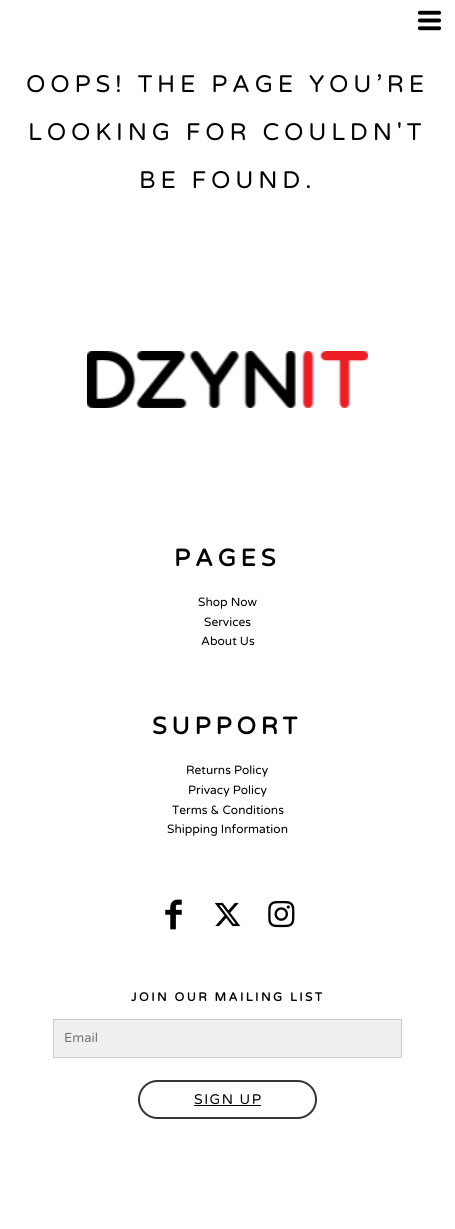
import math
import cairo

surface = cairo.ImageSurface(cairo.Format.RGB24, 455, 1229)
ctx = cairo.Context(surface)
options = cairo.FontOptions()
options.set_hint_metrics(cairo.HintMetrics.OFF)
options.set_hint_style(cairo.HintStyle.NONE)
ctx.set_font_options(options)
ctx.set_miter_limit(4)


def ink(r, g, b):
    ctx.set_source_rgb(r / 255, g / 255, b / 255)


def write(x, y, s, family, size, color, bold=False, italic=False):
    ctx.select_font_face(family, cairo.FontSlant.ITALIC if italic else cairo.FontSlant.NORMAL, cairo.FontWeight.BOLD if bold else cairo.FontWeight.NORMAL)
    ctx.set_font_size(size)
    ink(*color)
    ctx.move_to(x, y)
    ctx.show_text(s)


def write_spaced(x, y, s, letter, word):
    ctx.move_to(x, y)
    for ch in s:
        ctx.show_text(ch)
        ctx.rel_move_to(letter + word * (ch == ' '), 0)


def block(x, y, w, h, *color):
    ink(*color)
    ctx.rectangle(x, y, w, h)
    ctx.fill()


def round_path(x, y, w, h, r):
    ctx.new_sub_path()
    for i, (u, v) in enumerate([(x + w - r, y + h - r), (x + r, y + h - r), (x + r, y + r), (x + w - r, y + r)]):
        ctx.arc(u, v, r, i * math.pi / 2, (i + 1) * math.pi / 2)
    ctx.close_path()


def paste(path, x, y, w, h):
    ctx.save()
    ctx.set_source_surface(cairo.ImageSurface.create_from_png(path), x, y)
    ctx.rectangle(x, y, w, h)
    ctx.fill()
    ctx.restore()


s1 = dict(family="Varela Round", size=12, color=(0, 0, 0))
s2 = dict(family="Varela Round", size=13, color=(117, 117, 117))

ink(255, 255, 255)
ctx.paint()
paste("pic1.png", 417, 10, 25, 21)
ctx.select_font_face("Varela Round")
ctx.set_font_size(24)
ink(0, 0, 0)
write_spaced(26, 92, "OOPS! THE PAGE YOU’RE", 4.8, 0)
write_spaced(28, 140, "LOOKING FOR COULDN'T", 4.8, 0)
write_spaced(139, 188, "BE FOUND.", 4.8, 0)
paste("pic2.png", 87, 351, 281, 57)
ctx.select_font_face("Varela Round", cairo.FontSlant.NORMAL, cairo.FontWeight.BOLD)
write_spaced(174, 566, "PAGES", 4.8, 0)
write(198, 606, "Shop Now", **s1)
write(204, 626, "Services", **s1)
write(201, 645, "About Us", **s1)
ctx.select_font_face("Varela Round", cairo.FontSlant.NORMAL, cairo.FontWeight.BOLD)
ctx.set_font_size(24)
write_spaced(152, 734, "SUPPORT", 4.8, 0)
write(186, 774, "Returns Policy", **s1)
write(188, 794, "Privacy Policy", **s1)
write(172, 814, "Terms & Conditions", **s1)
write(167, 833, "Shipping Information", **s1)
paste("pic3.png", 165, 899, 17, 31)
paste("pic4.png", 214, 902, 27, 25)
paste("pic5.png", 268, 901, 27, 27)
ctx.select_font_face("Varela Round", cairo.FontSlant.NORMAL, cairo.FontWeight.BOLD)
write_spaced(131, 1001, "JOIN OUR MAILING LIST", 2.4, 0)
ink(239, 239, 239)
ctx.rectangle(53.5, 1019.5, 348, 38)
ctx.fill_preserve()
ink(204, 204, 204)
ctx.set_line_width(1)
ctx.stroke()
write(64, 1042, "Email", **s2)
round_path(139, 1081, 177, 37, 18.5)
ink(54, 52, 52)
ctx.set_line_width(2)
ctx.stroke()
ctx.set_font_size(14)
ink(0, 0, 0)
write_spaced(194, 1104, "SIGN UP", 1.5, 0)
block(194, 1105, 67, 1, 0, 0, 0)
surface.write_to_png("screenshot.png")
